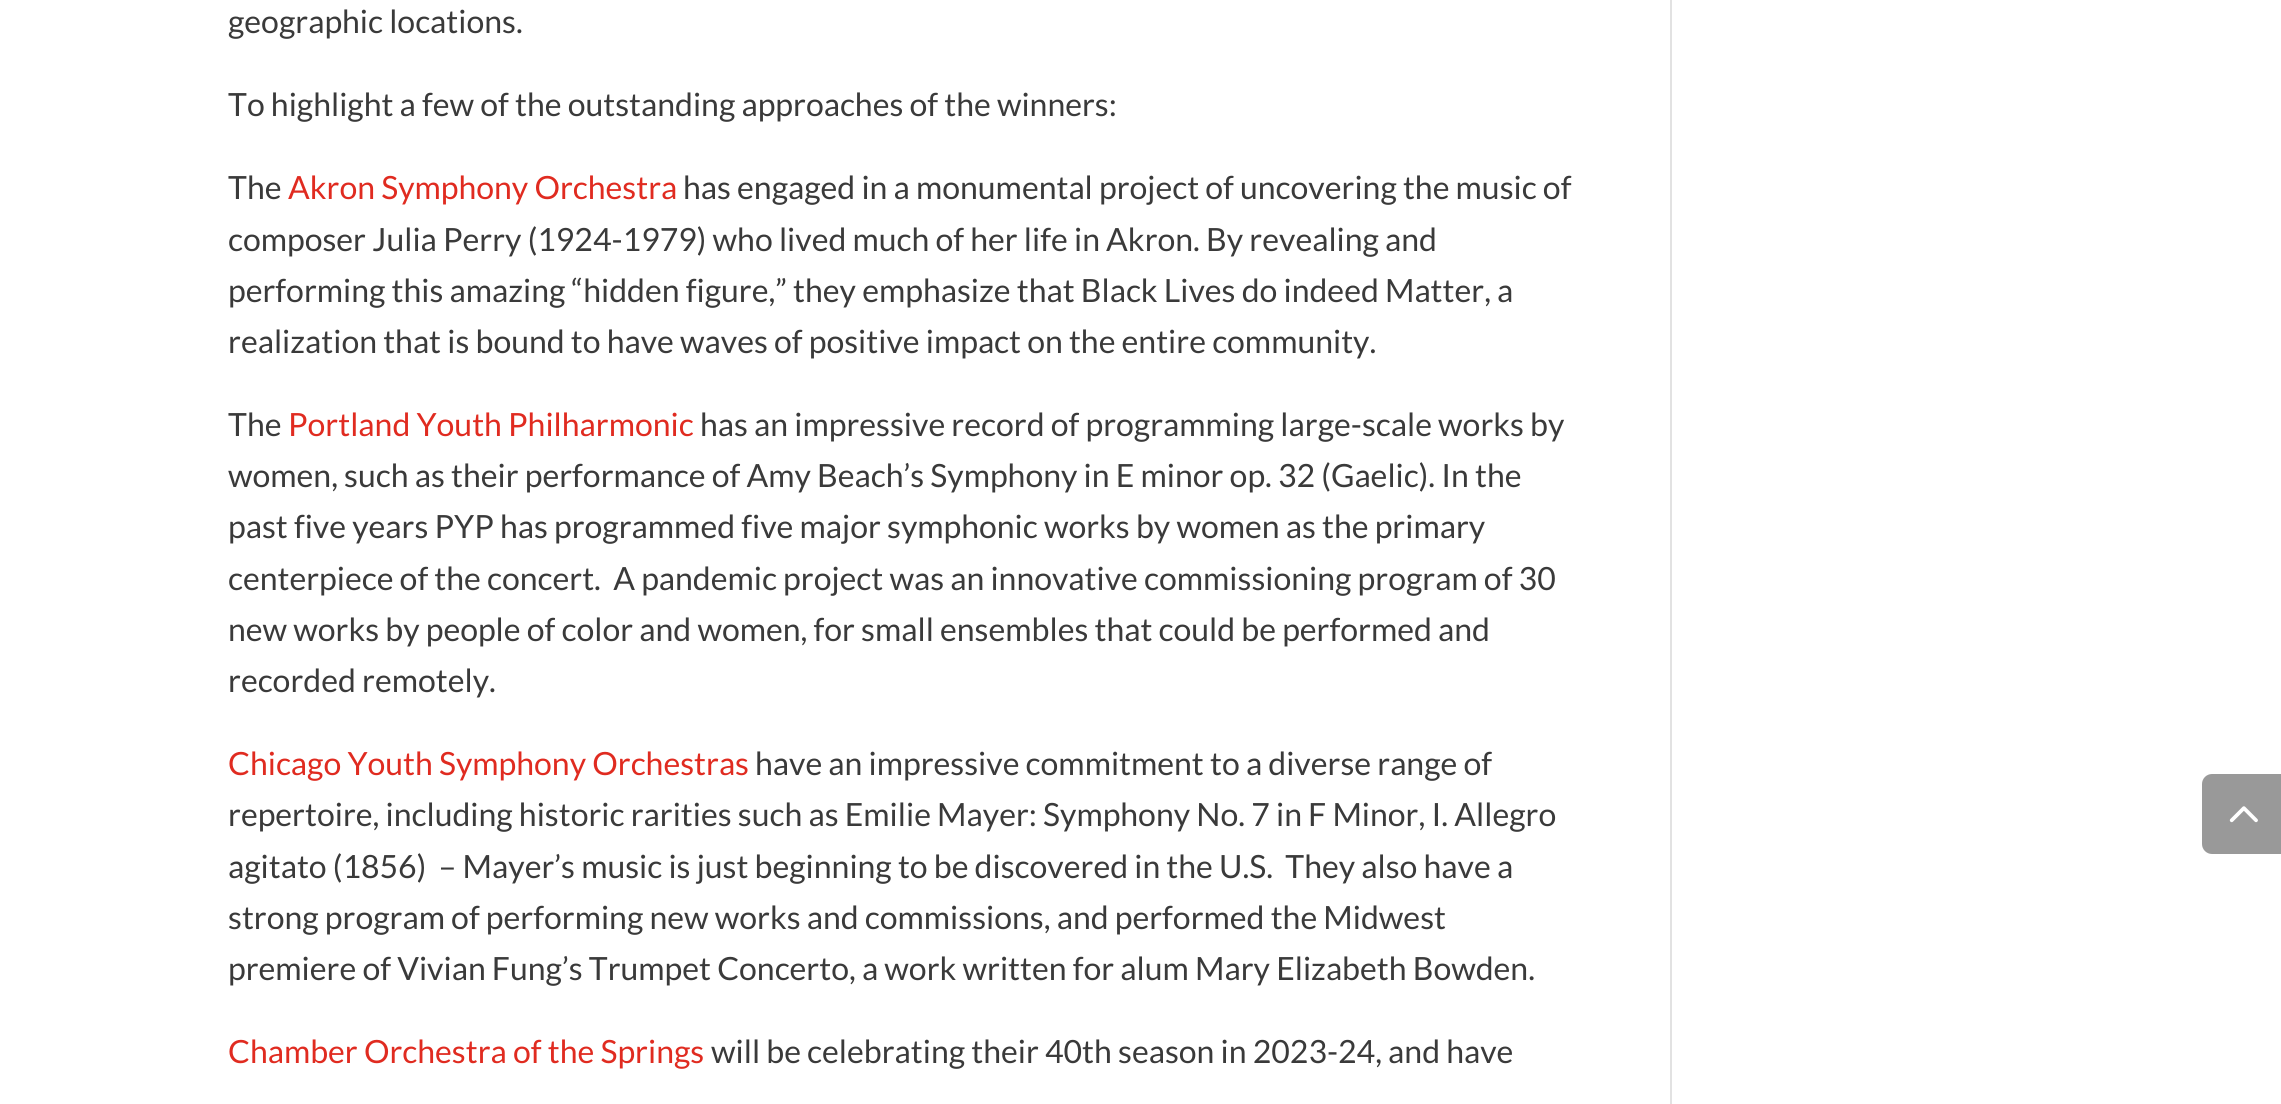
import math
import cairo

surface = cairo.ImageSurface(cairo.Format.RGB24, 2281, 1104)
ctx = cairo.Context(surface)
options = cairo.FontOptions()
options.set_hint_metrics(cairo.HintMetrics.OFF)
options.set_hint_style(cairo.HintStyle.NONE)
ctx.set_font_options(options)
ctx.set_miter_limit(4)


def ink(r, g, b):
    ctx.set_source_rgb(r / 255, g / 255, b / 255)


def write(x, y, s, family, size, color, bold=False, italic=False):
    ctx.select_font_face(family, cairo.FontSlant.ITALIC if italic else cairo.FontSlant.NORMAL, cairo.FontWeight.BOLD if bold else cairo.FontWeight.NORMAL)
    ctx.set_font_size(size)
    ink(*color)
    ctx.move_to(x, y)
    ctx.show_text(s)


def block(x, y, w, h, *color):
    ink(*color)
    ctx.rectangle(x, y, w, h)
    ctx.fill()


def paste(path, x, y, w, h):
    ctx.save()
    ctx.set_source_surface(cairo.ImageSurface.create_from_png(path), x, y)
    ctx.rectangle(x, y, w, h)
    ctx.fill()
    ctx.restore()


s1 = dict(family="Lato", size=32, color=(58, 58, 58))
s2 = dict(family="Lato", size=32, color=(224, 43, 32))

ink(255, 255, 255)
ctx.paint()
write(228, 33, "geographic locations.", **s1)
write(228, 116, "To highlight a few of the outstanding approaches of the winners:", **s1)
write(228, 199, "The", **s1)
write(288, 199, "Akron Symphony Orchestra", **s2)
write(683, 199, "has engaged in a monumental project of uncovering the music of", **s1)
write(228, 251, "composer Julia Perry (1924-1979) who lived much of her life in Akron. By revealing and", **s1)
write(228, 302, "performing this amazing “hidden figure,” they emphasize that Black Lives do indeed Matter, a", **s1)
write(228, 353, "realization that is bound to have waves of positive impact on the entire community.", **s1)
write(228, 436, "The", **s1)
write(288, 436, "Portland Youth Philharmonic", **s2)
write(700, 436, "has an impressive record of programming large-scale works by", **s1)
write(228, 487, "women, such as their performance of Amy Beach’s Symphony in E minor op. 32 (Gaelic). In the", **s1)
write(228, 538, "past five years PYP has programmed five major symphonic works by women as the primary", **s1)
write(228, 590, "centerpiece of the concert.  A pandemic project was an innovative commissioning program of 30", **s1)
write(228, 641, "new works by people of color and women, for small ensembles that could be performed and", **s1)
write(228, 692, "recorded remotely.", **s1)
write(228, 775, "Chicago Youth Symphony Orchestras", **s2)
write(755, 775, "have an impressive commitment to a diverse range of", **s1)
write(228, 826, "repertoire, including historic rarities such as Emilie Mayer: Symphony No. 7 in F Minor, I. Allegro", **s1)
write(228, 878, "agitato (1856)  – Mayer’s music is just beginning to be discovered in the U.S.  They also have a", **s1)
write(228, 929, "strong program of performing new works and commissions, and performed the Midwest", **s1)
write(228, 980, "premiere of Vivian Fung’s Trumpet Concerto, a work written for alum Mary Elizabeth Bowden.", **s1)
write(228, 1063, "Chamber Orchestra of the Springs", **s2)
write(711, 1063, "will be celebrating their 40th season in 2023-24, and have", **s1)
block(1670, 0, 2, 1104, 226, 226, 226)
ink(153, 153, 153)
ctx.new_path()
ctx.move_to(2212, 774)
ctx.line_to(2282, 774)
ctx.line_to(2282, 854)
ctx.line_to(2212, 854)
ctx.curve_to(2206.5, 854, 2202, 849.5, 2202, 844)
ctx.line_to(2202, 784)
ctx.curve_to(2202, 778.5, 2206.5, 774, 2212, 774)
ctx.close_path()
ctx.fill()
paste("pic1.png", 2229, 806, 29, 17)
surface.write_to_png("screenshot.png")
